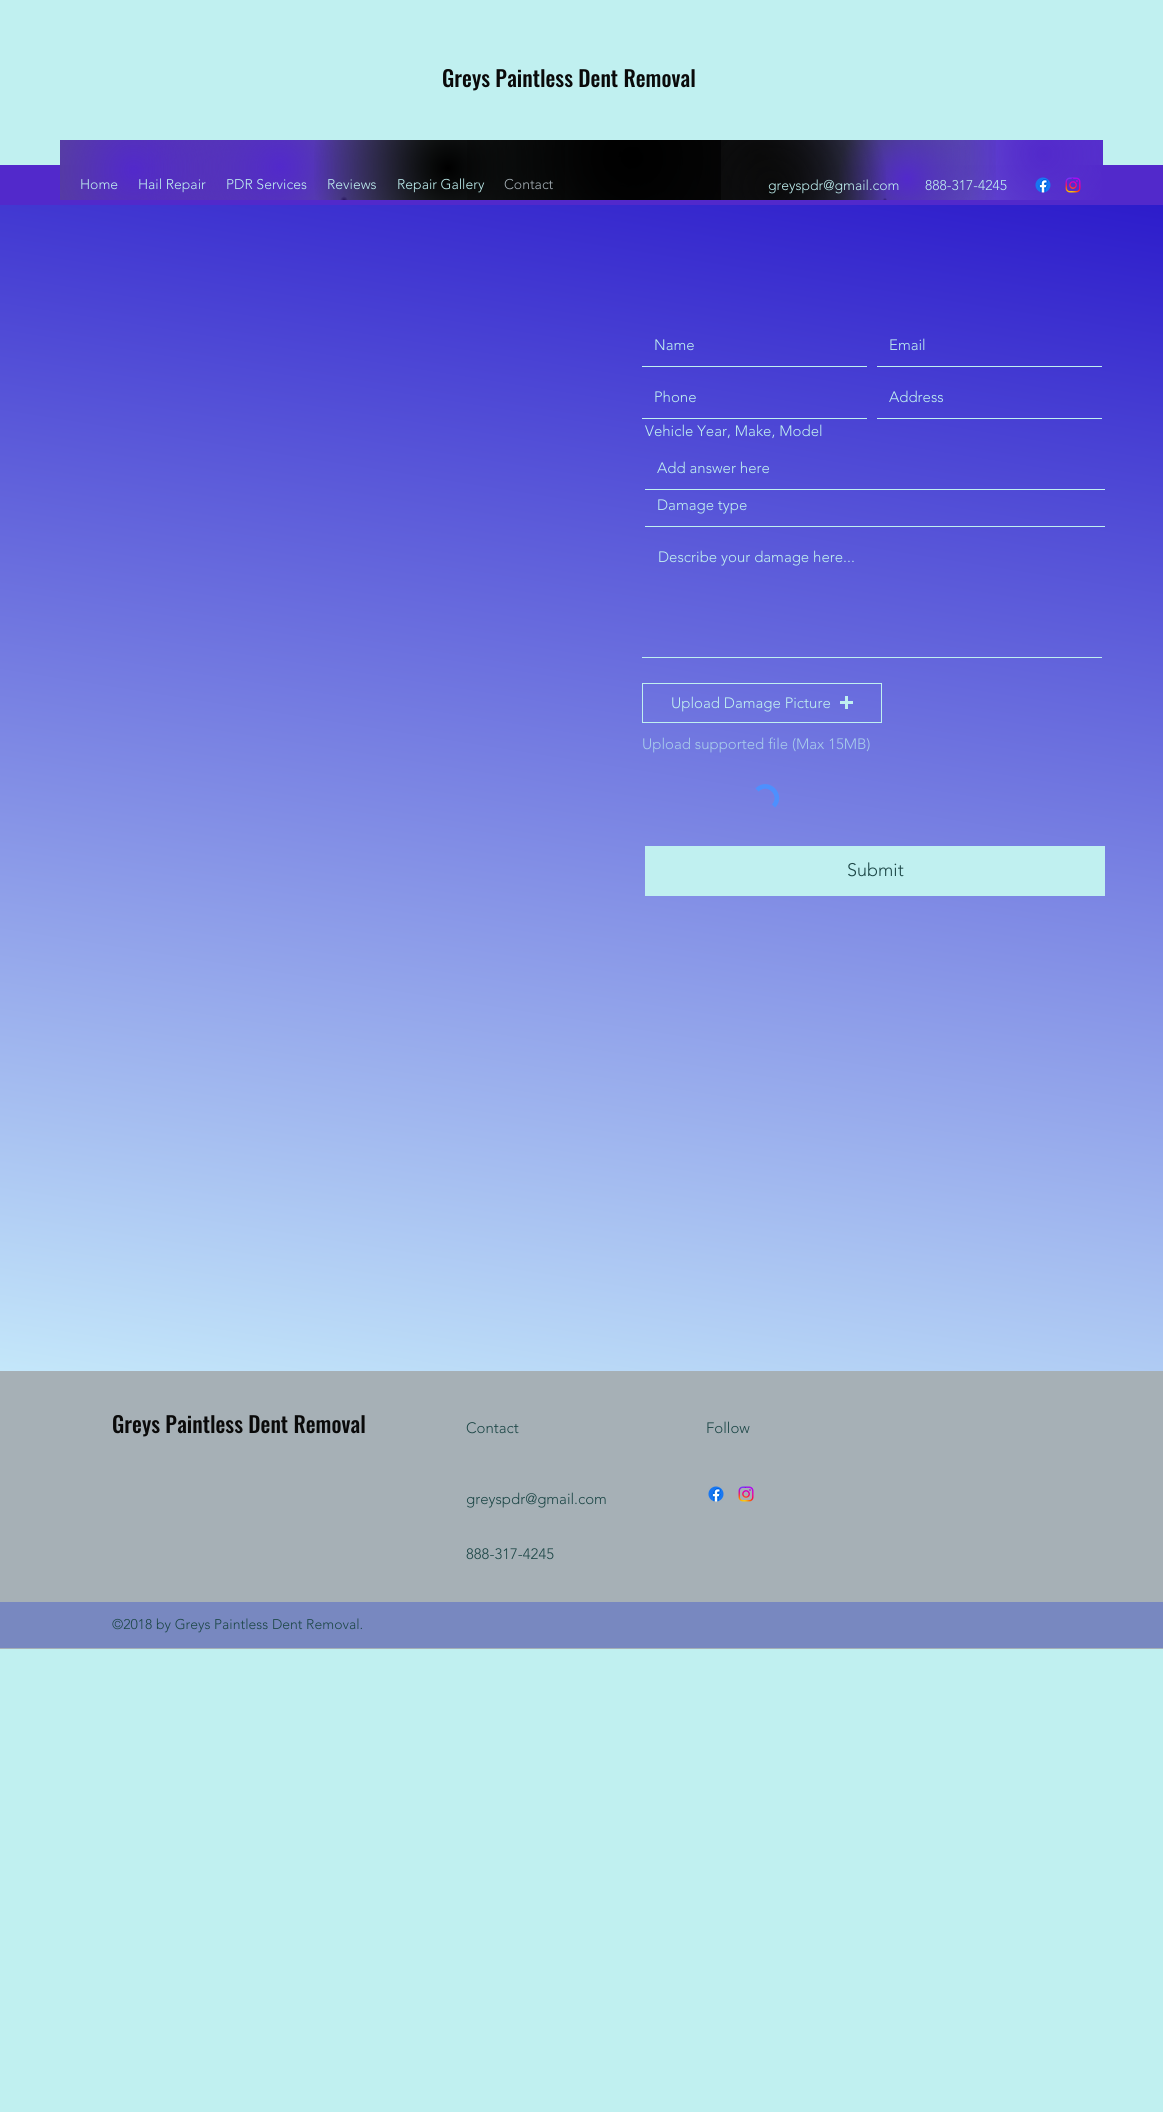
import math
import cairo

surface = cairo.ImageSurface(cairo.Format.RGB24, 1163, 2112)
ctx = cairo.Context(surface)
options = cairo.FontOptions()
options.set_hint_metrics(cairo.HintMetrics.OFF)
options.set_hint_style(cairo.HintStyle.NONE)
ctx.set_font_options(options)
ctx.set_miter_limit(4)


def ink(r, g, b):
    ctx.set_source_rgb(r / 255, g / 255, b / 255)


def write(x, y, s, family, size, color, bold=False, italic=False):
    ctx.select_font_face(family, cairo.FontSlant.ITALIC if italic else cairo.FontSlant.NORMAL, cairo.FontWeight.BOLD if bold else cairo.FontWeight.NORMAL)
    ctx.set_font_size(size)
    ink(*color)
    ctx.move_to(x, y)
    ctx.show_text(s)


def block(x, y, w, h, *color):
    ink(*color)
    ctx.rectangle(x, y, w, h)
    ctx.fill()


def paste(path, x, y, w, h):
    ctx.save()
    ctx.set_source_surface(cairo.ImageSurface.create_from_png(path), x, y)
    ctx.rectangle(x, y, w, h)
    ctx.fill()
    ctx.restore()


s1 = dict(family="Oswald Medium", size=22, color=(10, 10, 10))
s2 = dict(family="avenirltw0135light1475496 Light", size=14, color=(192, 240, 240))
s3 = dict(family="avenirltw0135light1475496 Light", size=14, color=(166, 176, 182))
s4 = dict(family="avenirltw0135light1475496 Light", size=15, color=(192, 240, 240))
s5 = dict(family="avenirltw0135light1475496 Light", size=15, color=(168, 204, 235))
s6 = dict(family="avenirltw0135light1475496 Light", size=18, color=(28, 70, 70))
s7 = dict(family="avenirltw0135light1475496 Light", size=15, color=(28, 70, 70))
s8 = dict(family="avenirltw0135light1475496 Light", size=14, color=(28, 70, 70))

ink(192, 240, 240)
ctx.paint()
write(442, 87, "Greys Paintless Dent Removal", **s1)
block(0, 165, 1163, 40, 82, 41, 203)
gradient = cairo.RadialGradient(570, 170, 0, 570, 170, 534)
gradient.add_color_stop_rgba(0, 0.753, 0.941, 0.941, 1)
gradient.add_color_stop_rgba(1, 0.753, 0.941, 0.941, 0)
ctx.set_source(gradient)
ctx.rectangle(60, 165, 1031, 35)
ctx.fill()
gradient = cairo.RadialGradient(521, 162, 0, 521, 162, 584)
gradient.add_color_stop_rgba(0, 0.027, 0.027, 0.027, 1)
gradient.add_color_stop_rgba(1, 0.027, 0.027, 0.027, 0)
ctx.set_source(gradient)
ctx.rectangle(60, 140, 1033, 60)
ctx.fill()
gradient = cairo.RadialGradient(668, 165, 0, 668, 165, 609)
gradient.add_color_stop_rgba(0, 0.039, 0.039, 0.039, 1)
gradient.add_color_stop_rgba(0.7, 0.039, 0.039, 0.039, 0)
ctx.set_source(gradient)
ctx.rectangle(252, 140, 831, 60)
ctx.fill()
gradient = cairo.RadialGradient(190, 170, 0, 190, 170, 913)
gradient.add_color_stop_rgba(0, 0.322, 0.161, 0.796, 1)
gradient.add_color_stop_rgba(0.35, 0.322, 0.161, 0.796, 0)
ctx.set_source(gradient)
ctx.rectangle(60, 140, 443, 60)
ctx.fill()
gradient = cairo.RadialGradient(1055, 169, 0, 1055, 169, 996)
gradient.add_color_stop_rgba(0, 0.322, 0.161, 0.796, 1)
gradient.add_color_stop_rgba(0.35, 0.322, 0.161, 0.796, 0)
ctx.set_source(gradient)
ctx.rectangle(714, 140, 389, 60)
ctx.fill()
gradient = cairo.RadialGradient(383, 170, 0, 383, 170, 339)
gradient.add_color_stop_rgba(0, 0.753, 0.941, 0.941, 1)
gradient.add_color_stop_rgba(1, 0.753, 0.941, 0.941, 0)
ctx.set_source(gradient)
ctx.rectangle(60, 140, 655, 60)
ctx.fill()
gradient = cairo.RadialGradient(619, 154, 0, 619, 154, 561)
gradient.add_color_stop_rgba(0, 0.027, 0.027, 0.027, 1)
gradient.add_color_stop_rgba(1, 0.027, 0.027, 0.027, 0)
ctx.set_source(gradient)
ctx.rectangle(71, 140, 650, 60)
ctx.fill()
gradient = cairo.RadialGradient(93, 169, 0, 93, 169, 629)
gradient.add_color_stop_rgba(0, 0.361, 0.361, 0.361, 1)
gradient.add_color_stop_rgba(0.7, 0.361, 0.361, 0.361, 0)
ctx.set_source(gradient)
ctx.rectangle(60, 140, 457, 60)
ctx.fill()
gradient = cairo.RadialGradient(344, 200, 0, 344, 200, 382)
gradient.add_color_stop_rgba(0, 0.039, 0.039, 0.039, 1)
gradient.add_color_stop_rgba(0.01, 0.039, 0.039, 0.039, 0)
ctx.set_source(gradient)
ctx.rectangle(340, 196, 8, 4)
ctx.fill()
gradient = cairo.RadialGradient(134, 170, 0, 134, 170, 587)
gradient.add_color_stop_rgba(0, 0.322, 0.161, 0.796, 1)
gradient.add_color_stop_rgba(0.35, 0.322, 0.161, 0.796, 0)
ctx.set_source(gradient)
ctx.rectangle(60, 140, 273, 60)
ctx.fill()
gradient = cairo.RadialGradient(280, 167, 0, 280, 167, 442)
gradient.add_color_stop_rgba(0, 0.322, 0.161, 0.796, 1)
gradient.add_color_stop_rgba(0.35, 0.322, 0.161, 0.796, 0)
ctx.set_source(gradient)
ctx.rectangle(147, 140, 284, 60)
ctx.fill()
gradient = cairo.RadialGradient(448, 168, 0, 448, 168, 390)
gradient.add_color_stop_rgba(0, 0, 0, 0, 1)
gradient.add_color_stop_rgba(0.35, 0, 0, 0, 0)
ctx.set_source(gradient)
ctx.rectangle(314, 140, 251, 60)
ctx.fill()
gradient = cairo.RadialGradient(633, 158, 0, 633, 158, 574)
gradient.add_color_stop_rgba(0, 0, 0, 0, 1)
gradient.add_color_stop_rgba(0.35, 0, 0, 0, 0)
ctx.set_source(gradient)
ctx.rectangle(467, 140, 254, 60)
ctx.fill()
write(80, 189, "Home", **s2)
write(138, 189, "Hail Repair", **s2)
write(226, 189, "PDR Services", **s2)
write(327, 189, "Reviews", **s2)
write(397, 189, "Repair Gallery", **s2)
write(504, 189, "Contact", **s3)
gradient = cairo.RadialGradient(908, 170, 0, 908, 170, 198)
gradient.add_color_stop_rgba(0, 0.753, 0.941, 0.941, 1)
gradient.add_color_stop_rgba(1, 0.753, 0.941, 0.941, 0)
ctx.set_source(gradient)
ctx.rectangle(721, 140, 381, 60)
ctx.fill()
gradient = cairo.RadialGradient(1044, 154, 0, 1044, 154, 326)
gradient.add_color_stop_rgba(0, 0.322, 0.161, 0.796, 1)
gradient.add_color_stop_rgba(1, 0.322, 0.161, 0.796, 0)
ctx.set_source(gradient)
ctx.rectangle(725, 140, 378, 60)
ctx.fill()
gradient = cairo.RadialGradient(759, 157, 0, 759, 157, 346)
gradient.add_color_stop_rgba(0, 0.039, 0.039, 0.039, 1)
gradient.add_color_stop_rgba(0.7, 0.039, 0.039, 0.039, 0)
ctx.set_source(gradient)
ctx.rectangle(721, 140, 275, 60)
ctx.fill()
gradient = cairo.RadialGradient(885, 200, 0, 885, 200, 226)
gradient.add_color_stop_rgba(0, 0.039, 0.039, 0.039, 1)
gradient.add_color_stop_rgba(0.01, 0.039, 0.039, 0.039, 0)
ctx.set_source(gradient)
ctx.rectangle(883, 198, 4, 2)
ctx.fill()
gradient = cairo.RadialGradient(907, 179, 0, 907, 179, 200)
gradient.add_color_stop_rgba(0, 0.322, 0.161, 0.796, 1)
gradient.add_color_stop_rgba(0.35, 0.322, 0.161, 0.796, 0)
ctx.set_source(gradient)
ctx.rectangle(839, 140, 131, 60)
ctx.fill()
gradient = cairo.RadialGradient(772, 188, 0, 772, 188, 334)
gradient.add_color_stop_rgba(0, 0.039, 0.039, 0.039, 1)
gradient.add_color_stop_rgba(0.35, 0.039, 0.039, 0.039, 0)
ctx.set_source(gradient)
ctx.rectangle(721, 140, 165, 60)
ctx.fill()
write(768, 190, "greyspdr@gmail.com", **s2)
write(925, 190, "888-317-4245", **s2)
paste("pic1.png", 1035, 177, 16, 16)
paste("pic2.png", 1065, 177, 16, 16)
gradient = cairo.LinearGradient(686, 129, 477, 1447)
gradient.add_color_stop_rgba(0, 0.176, 0.11, 0.796, 1)
gradient.add_color_stop_rgba(1, 0.769, 0.906, 0.98, 1)
ctx.set_source(gradient)
ctx.rectangle(0, 205, 1163, 1166)
ctx.fill()
block(642, 366, 225, 1, 192, 240, 240)
write(654, 350, "Name", **s4)
block(877, 366, 225, 1, 192, 240, 240)
write(889, 350, "Email", **s4)
block(642, 418, 225, 1, 192, 240, 240)
write(654, 402, "Phone", **s4)
block(877, 418, 225, 1, 192, 240, 240)
write(889, 402, "Address", **s4)
write(645, 436, "Vehicle Year, Make, Model", **s4)
block(645, 489, 460, 1, 192, 240, 240)
write(657, 473, "Add answer here", **s4)
block(645, 526, 460, 1, 192, 240, 240)
write(657, 510, "Damage type", **s4)
block(642, 657, 460, 1, 192, 240, 240)
write(658, 562, "Describe your damage here...", **s4)
ctx.rectangle(642.5, 683.5, 239, 39)
ctx.set_line_width(1)
ctx.stroke()
write(671, 708, "Upload Damage Picture", **s4)
block(845, 696, 3, 13, 192, 240, 240)
block(840, 701, 13, 3, 192, 240, 240)
write(642, 749, "Upload supported file (Max 15MB)", **s5)
ctx.new_path()
ctx.move_to(757, 790)
ctx.curve_to(768, 779, 784, 795.5, 773.5, 806)
ink(77, 144, 254)
ctx.set_line_width(4.6)
ctx.stroke()
block(645, 846, 460, 50, 192, 240, 240)
write(847, 876, "Submit", **s6)
block(0, 1371, 1163, 278, 166, 176, 182)
write(112, 1433, "Greys Paintless Dent Removal", **s1)
write(466, 1433, "Contact", **s7)
write(706, 1433, "Follow", **s7)
write(466, 1504, "greyspdr@gmail.com", **s7)
paste("pic3.png", 708, 1486, 16, 16)
paste("pic4.png", 738, 1486, 16, 16)
write(466, 1559, "888-317-4245", **s7)
block(0, 1602, 1163, 46, 120, 136, 192)
write(112, 1629, "©2018 by Greys Paintless Dent Removal.", **s8)
surface.write_to_png("screenshot.png")
